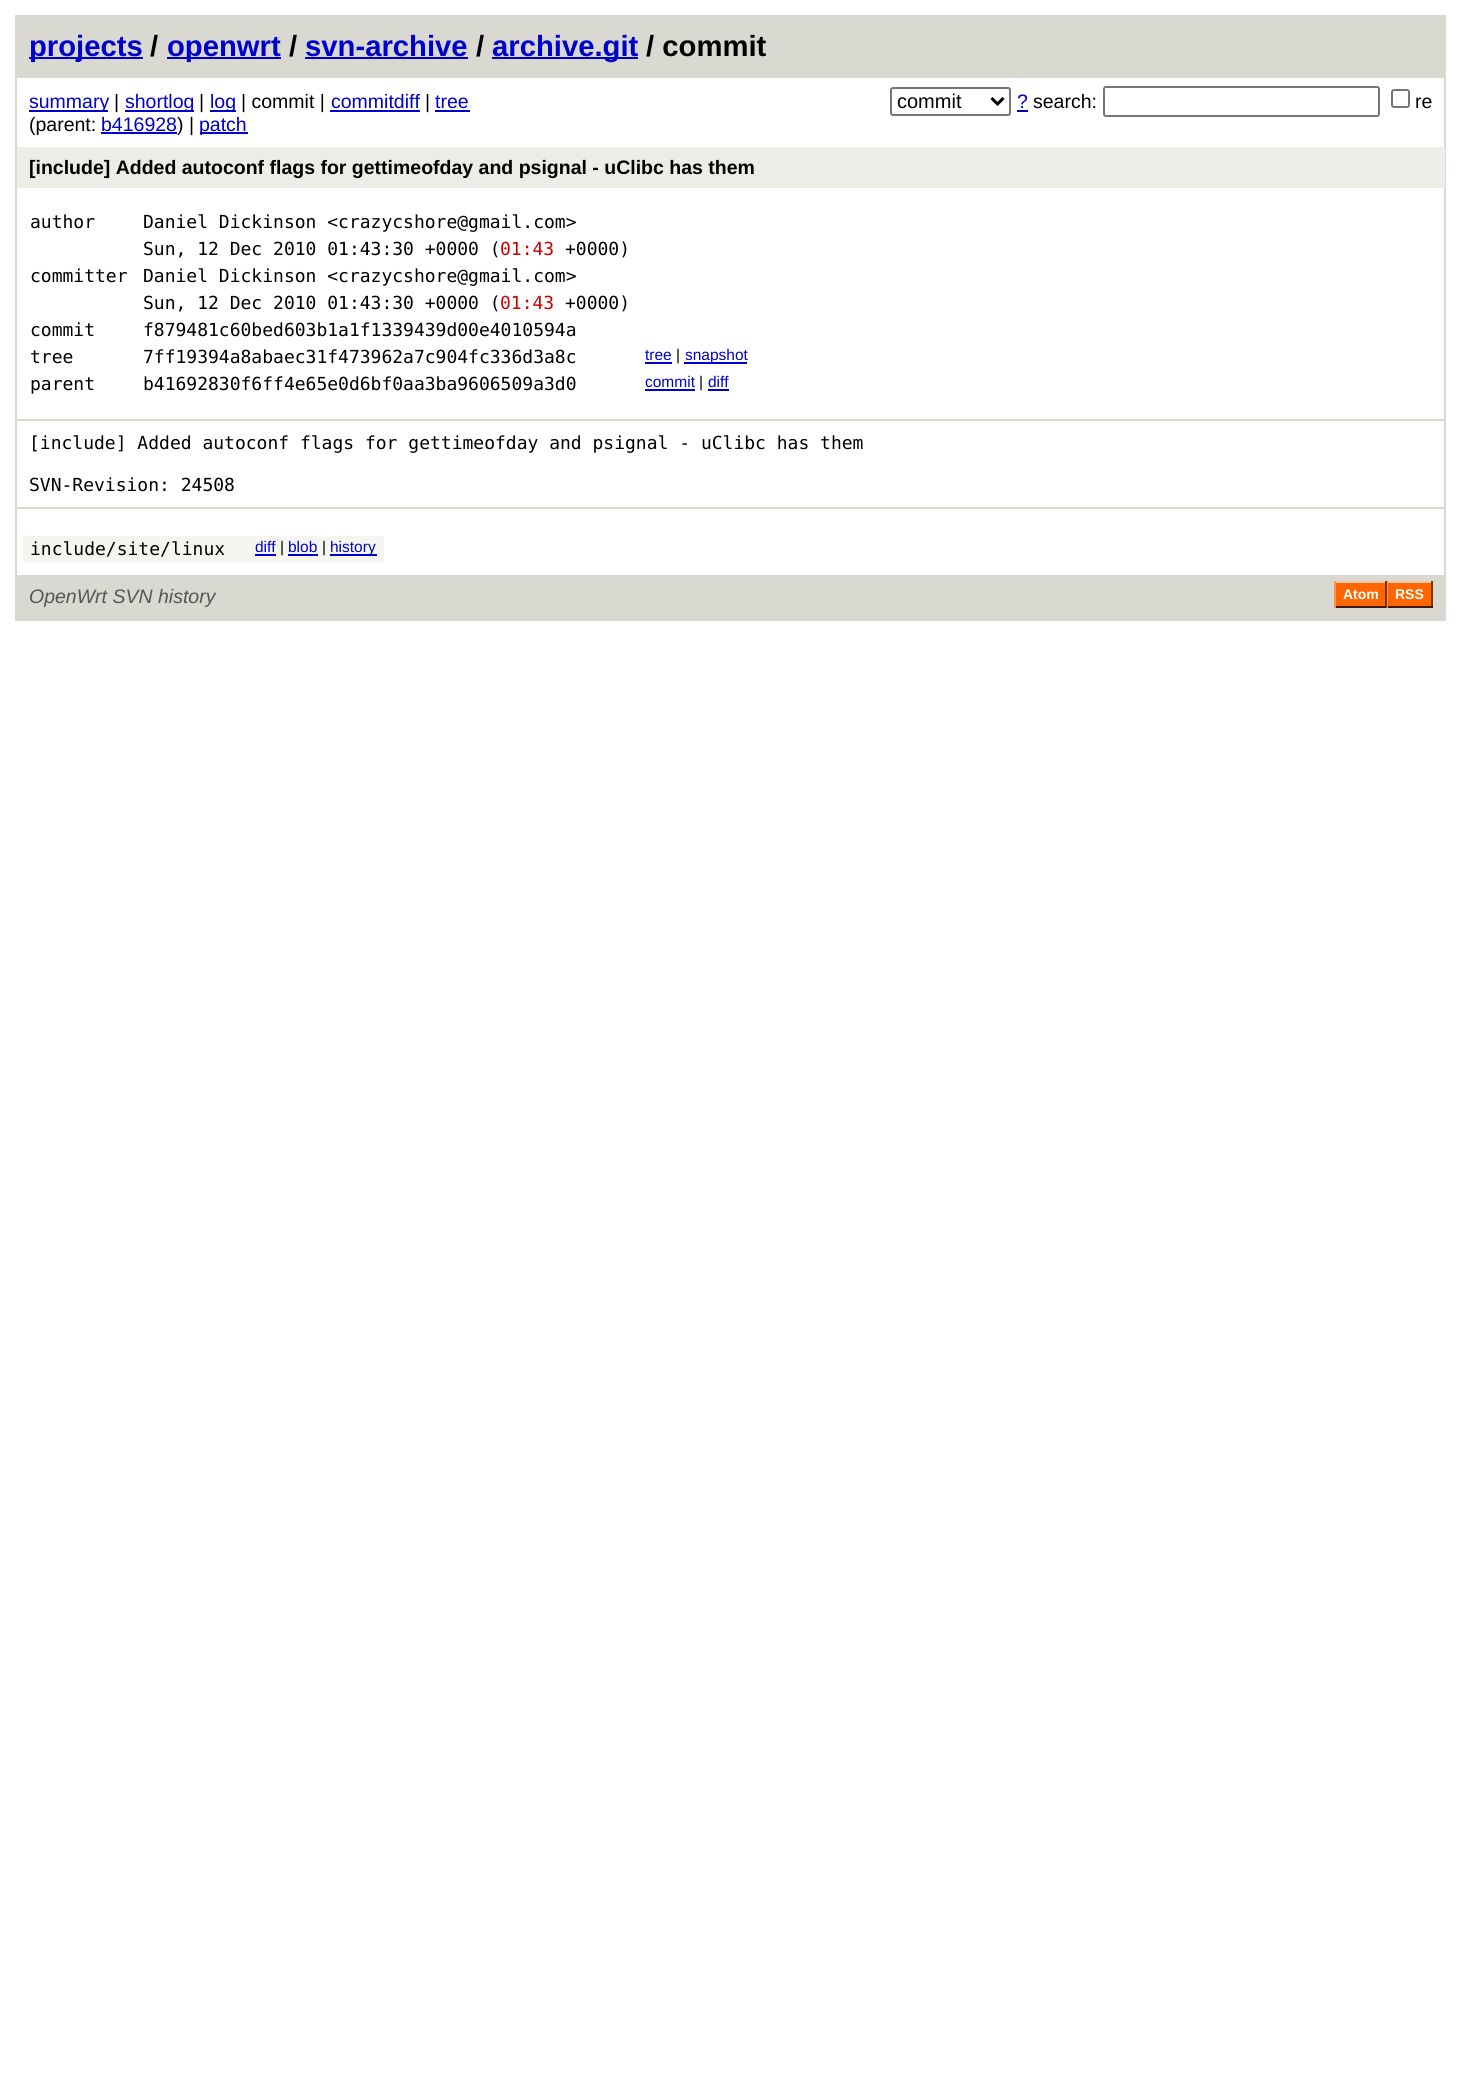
import math
import cairo

surface = cairo.ImageSurface(cairo.Format.RGB24, 1461, 2079)
ctx = cairo.Context(surface)
options = cairo.FontOptions()
options.set_hint_metrics(cairo.HintMetrics.OFF)
options.set_hint_style(cairo.HintStyle.NONE)
ctx.set_font_options(options)
ctx.set_miter_limit(4)


def ink(r, g, b):
    ctx.set_source_rgb(r / 255, g / 255, b / 255)


def write(x, y, s, family, size, color, bold=False, italic=False):
    ctx.select_font_face(family, cairo.FontSlant.ITALIC if italic else cairo.FontSlant.NORMAL, cairo.FontWeight.BOLD if bold else cairo.FontWeight.NORMAL)
    ctx.set_font_size(size)
    ink(*color)
    ctx.move_to(x, y)
    ctx.show_text(s)


def block(x, y, w, h, *color):
    ink(*color)
    ctx.rectangle(x, y, w, h)
    ctx.fill()


def round_path(x, y, w, h, r):
    ctx.new_sub_path()
    for i, (u, v) in enumerate([(x + w - r, y + h - r), (x + r, y + h - r), (x + r, y + r), (x + w - r, y + r)]):
        ctx.arc(u, v, r, i * math.pi / 2, (i + 1) * math.pi / 2)
    ctx.close_path()


s1 = dict(family="Liberation Sans", size=29.25, color=(0, 0, 204), bold=True)
s2 = dict(family="Liberation Sans", size=29.25, color=(0, 0, 0), bold=True)
s3 = dict(family="Liberation Sans", size=19.5, color=(0, 0, 204))
s4 = dict(family="Liberation Sans", size=19.5, color=(0, 0, 0))
s5 = dict(family="Liberation Sans", size=20, color=(0, 0, 0))
s6 = dict(family="Liberation Sans", size=19.5, color=(0, 0, 0), bold=True)
s7 = dict(family="DejaVu Sans Mono", size=18, color=(0, 0, 0))
s8 = dict(family="DejaVu Sans Mono", size=18, color=(204, 0, 0))
s9 = dict(family="Liberation Sans", size=15.5, color=(0, 0, 204))
s10 = dict(family="Liberation Sans", size=15.5, color=(0, 0, 0))
s11 = dict(family="Liberation Sans", size=19.5, color=(85, 85, 85), italic=True)
s12 = dict(family="Liberation Sans", size=14, color=(255, 255, 255), bold=True)

ink(255, 255, 255)
ctx.paint()
ctx.rectangle(16, 16, 1429, 604)
ink(217, 216, 209)
ctx.stroke()
block(17, 17, 1427, 61, 217, 216, 209)
block(29, 57, 114, 2, 0, 0, 204)
write(29, 56, "projects", **s1)
write(150, 56, "/", **s2)
block(167, 57, 114, 2, 0, 0, 204)
write(167, 56, "openwrt", **s1)
write(289, 56, "/", **s2)
write(305, 56, "svn-archive", **s1)
block(305, 57, 163, 2, 0, 0, 204)
write(476, 56, "/", **s2)
block(492, 57, 146, 2, 0, 0, 204)
write(492, 56, "archive.git", **s1)
write(646, 56, "/ commit", **s2)
block(29, 110, 79, 2, 0, 0, 204)
write(29, 108, "summary", **s3)
write(114, 108, "|", **s4)
block(125, 110, 69, 2, 0, 0, 204)
write(125, 108, "shortlog", **s3)
write(199, 108, "|", **s4)
block(210, 110, 26, 2, 0, 0, 204)
write(210, 108, "log", **s3)
write(241, 108, "| commit |", **s4)
write(331, 108, "commitdiff", **s3)
block(330, 110, 90, 2, 0, 0, 204)
write(425, 108, "|", **s4)
write(435, 108, "tree", **s3)
block(435, 110, 35, 2, 0, 0, 204)
write(29, 131, "(parent:", **s4)
write(101, 131, "b416928", **s3)
block(101, 132, 76, 2, 0, 0, 204)
write(177, 131, ") |", **s4)
block(200, 132, 48, 2, 0, 0, 204)
write(199, 131, "patch", **s3)
round_path(891, 88, 119, 27, 2)
ink(118, 118, 118)
ctx.stroke()
ctx.new_path()
ctx.move_to(991.5, 98)
ctx.line_to(997.5, 104)
ctx.line_to(1003.5, 98)
ink(0, 0, 0)
ctx.set_line_width(3)
ctx.stroke()
write(897, 108, "commit", **s5)
write(1017, 108, "?", **s3)
block(1017, 110, 11, 2, 0, 0, 204)
write(1033, 108, "search:", **s4)
round_path(1104, 87, 275, 29, 2)
ink(118, 118, 118)
ctx.set_line_width(2)
ctx.stroke()
round_path(1392, 90, 17, 17, 2)
ctx.stroke()
write(1415, 108, "re", **s4)
block(17, 147, 1428, 41, 237, 236, 230)
write(29, 174, "[include] Added autoconf flags for gettimeofday and psignal - uClibc has them", **s6)
block(17, 419, 1428, 2, 217, 216, 209)
write(30, 228, "author", **s7)
write(143, 228, "Daniel Dickinson <crazycshore@gmail.com>", **s7)
write(143, 255, "Sun, 12 Dec 2010 01:43:30 +0000 (", **s7)
write(500, 255, "01:43", **s8)
write(565, 255, "+0000)", **s7)
write(30, 282, "committer", **s7)
write(143, 282, "Daniel Dickinson <crazycshore@gmail.com>", **s7)
write(143, 309, "Sun, 12 Dec 2010 01:43:30 +0000 (", **s7)
write(500, 309, "01:43", **s8)
write(565, 309, "+0000)", **s7)
write(30, 336, "commit", **s7)
write(143, 336, "f879481c60bed603b1a1f1339439d00e4010594a", **s7)
write(30, 363, "tree", **s7)
write(143, 363, "7ff19394a8abaec31f473962a7c904fc336d3a8c", **s7)
write(645, 360, "tree", **s9)
block(645, 362, 27, 2, 0, 0, 204)
write(676, 360, "|", **s10)
block(684, 362, 63, 2, 0, 0, 204)
write(685, 360, "snapshot", **s9)
write(30, 390, "parent", **s7)
write(143, 390, "b41692830f6ff4e65e0d6bf0aa3ba9606509a3d0", **s7)
write(645, 387, "commit", **s9)
block(645, 389, 50, 2, 0, 0, 204)
write(699, 387, "|", **s10)
write(708, 387, "diff", **s9)
block(708, 389, 21, 2, 0, 0, 204)
write(29, 449, "[include] Added autoconf flags for gettimeofday and psignal - uClibc has them", **s7)
write(29, 491, "SVN-Revision: 24508", **s7)
block(17, 507, 1428, 2, 217, 216, 209)
block(23, 536, 361, 27, 246, 246, 240)
write(30, 555, "include/site/linux", **s7)
write(255, 552, "diff", **s9)
block(255, 554, 21, 2, 0, 0, 204)
write(280, 552, "|", **s10)
write(288, 552, "blob", **s9)
block(288, 554, 30, 2, 0, 0, 204)
write(322, 552, "|", **s10)
block(330, 554, 47, 2, 0, 0, 204)
write(330, 552, "history", **s9)
block(17, 575, 1427, 44, 217, 216, 209)
write(29, 603, "OpenWrt SVN history", **s11)
block(1336, 583, 49, 23, 255, 102, 0)
block(1334, 581, 99, 2, 252, 199, 165)
block(1431, 581, 2, 27, 125, 51, 2)
block(1386, 606, 47, 2, 62, 26, 1)
block(1385, 581, 2, 27, 125, 51, 2)
block(1334, 606, 52, 2, 62, 26, 1)
block(1334, 581, 2, 27, 255, 149, 78)
write(1343, 599, "Atom", **s12)
block(1388, 583, 43, 23, 255, 102, 0)
block(1387, 581, 1, 27, 255, 149, 78)
write(1395, 599, "RSS", **s12)
surface.write_to_png("screenshot.png")
